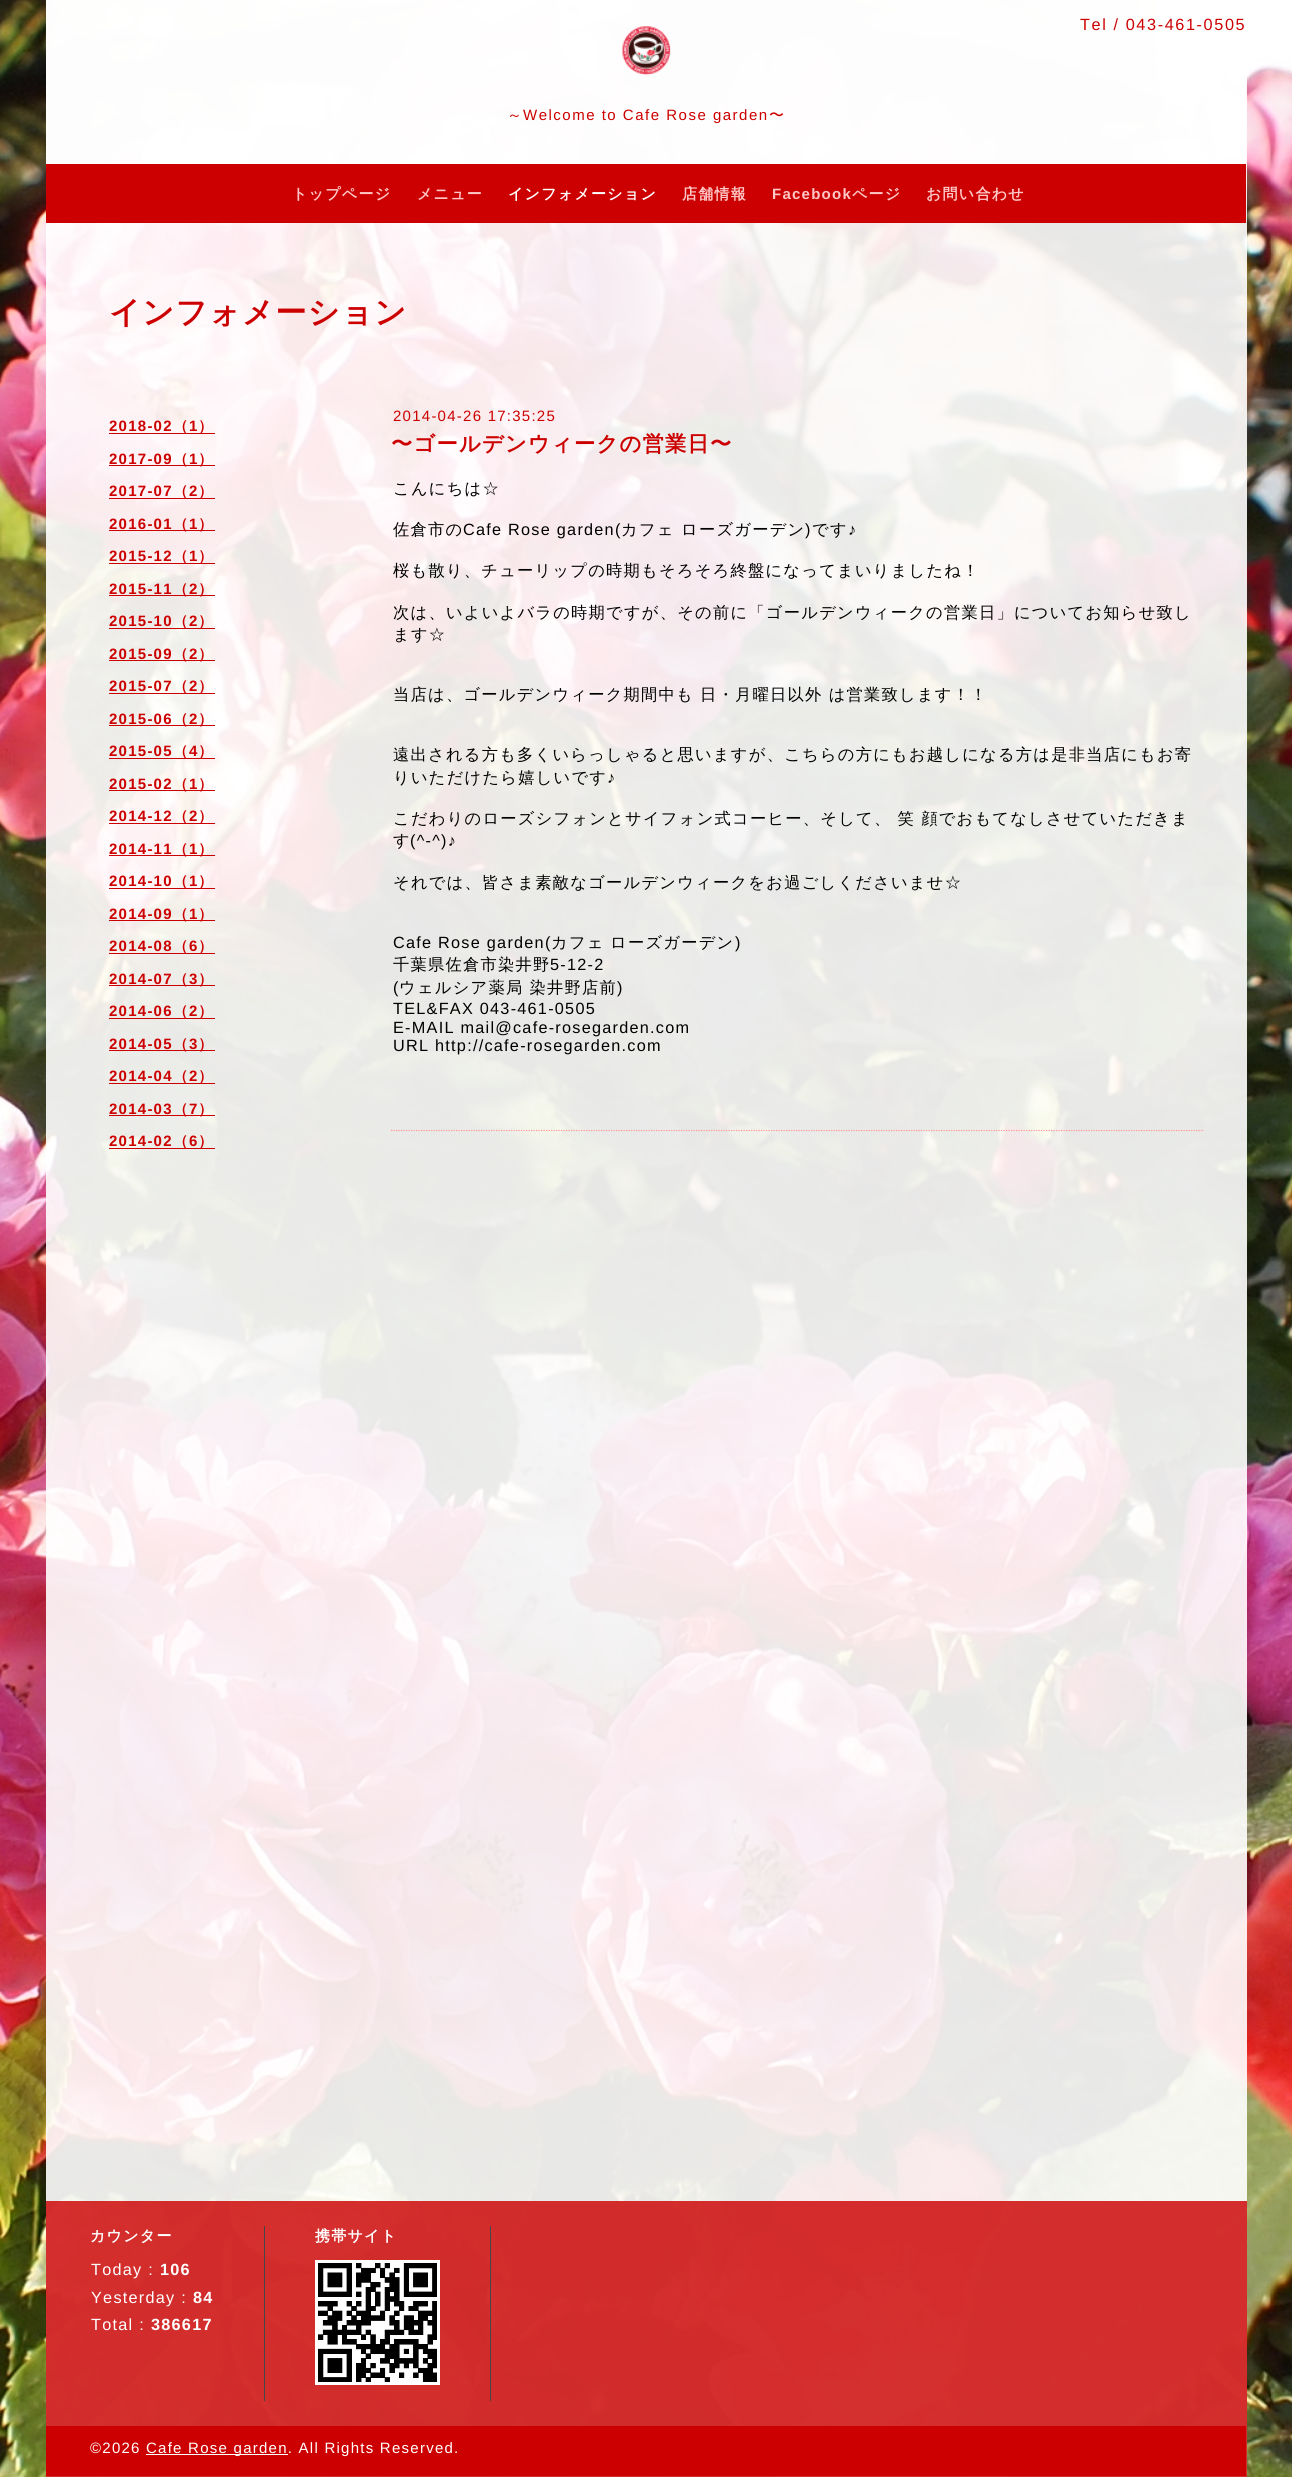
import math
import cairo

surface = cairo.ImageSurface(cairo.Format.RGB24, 1292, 2477)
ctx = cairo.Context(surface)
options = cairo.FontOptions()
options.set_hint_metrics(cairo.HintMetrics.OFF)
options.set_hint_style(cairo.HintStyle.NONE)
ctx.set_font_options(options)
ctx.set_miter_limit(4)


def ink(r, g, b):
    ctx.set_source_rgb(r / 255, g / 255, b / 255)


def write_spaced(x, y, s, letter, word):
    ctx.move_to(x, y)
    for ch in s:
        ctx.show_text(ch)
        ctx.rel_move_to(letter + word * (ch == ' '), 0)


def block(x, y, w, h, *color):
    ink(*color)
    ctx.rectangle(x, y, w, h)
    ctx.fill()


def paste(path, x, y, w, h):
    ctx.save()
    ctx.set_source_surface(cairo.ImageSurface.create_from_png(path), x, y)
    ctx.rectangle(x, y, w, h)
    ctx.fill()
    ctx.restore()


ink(255, 255, 255)
ctx.paint()
paste("pic1.png", 0, 0, 1292, 2477)
ctx.set_source_rgba(1, 1, 1, 0.9)
ctx.rectangle(46, 0, 1200, 164)
ctx.fill()
ctx.select_font_face("Liberation Sans")
ctx.set_font_size(16.25)
ink(204, 0, 0)
write_spaced(1080, 30, "Tel / 043-461-0505", 1.6, 0)
paste("pic2.png", 622, 26, 49, 50)
ctx.select_font_face("WenQuanYi Zen Hei Medium")
ctx.set_font_size(15)
write_spaced(507, 120, "～", 1.5, 0)
ctx.select_font_face("Liberation Sans")
write_spaced(523, 120, "Welcome to Cafe Rose garden", 1.5, 0)
ctx.select_font_face("WenQuanYi Zen Hei Medium")
write_spaced(769, 120, "〜", 1.5, 0)
block(46, 164, 1200, 59, 204, 0, 0)
ctx.select_font_face("WenQuanYi Zen Hei", cairo.FontSlant.NORMAL, cairo.FontWeight.BOLD)
ink(255, 199, 199)
write_spaced(292, 199, "トップページ", 1.25, 0)
write_spaced(417, 199, "メニュー", 1.25, 0)
ink(255, 255, 255)
write_spaced(508, 199, "インフォメーション", 1.25, 0)
ink(255, 199, 199)
write_spaced(682, 199, "店舗情報", 1.25, 0)
ctx.select_font_face("Liberation Sans", cairo.FontSlant.NORMAL, cairo.FontWeight.BOLD)
write_spaced(772, 199, "Facebook", 1.25, 0)
ctx.select_font_face("WenQuanYi Zen Hei", cairo.FontSlant.NORMAL, cairo.FontWeight.BOLD)
write_spaced(852, 199, "ページ", 1.25, 0)
write_spaced(926, 199, "お問い合わせ", 1.25, 0)
ctx.set_font_size(31.25)
ink(204, 0, 0)
write_spaced(109, 323, "インフォメーション", 1.25, 0)
ctx.select_font_face("Liberation Sans")
ctx.set_font_size(15)
write_spaced(393, 421, "2014-04-26 17:35:25", 1.25, 0)
ctx.select_font_face("WenQuanYi Zen Hei", cairo.FontSlant.NORMAL, cairo.FontWeight.BOLD)
ctx.set_font_size(21.25)
write_spaced(391, 451, "〜ゴールデンウィークの営業日〜", 1.25, 0)
ctx.new_path()
ctx.move_to(391, 1130.5)
ctx.line_to(1204, 1130.5)
ink(255, 150, 150)
ctx.set_line_width(1.2)
ctx.set_dash([1.25, 1.25])
ctx.stroke()
ctx.select_font_face("WenQuanYi Zen Hei Medium")
ctx.set_font_size(16.25)
ink(0, 0, 0)
write_spaced(393, 494, "こんにちは☆", 1.25, 0)
write_spaced(393, 535, "佐倉市の", 1.25, 0)
ctx.select_font_face("Liberation Sans")
write_spaced(463, 535, "Cafe Rose garden(", 1.25, 0)
ctx.select_font_face("WenQuanYi Zen Hei Medium")
write_spaced(621, 535, "カフェ", 1.25, 0)
write_spaced(681, 535, "ローズガーデン", 1.25, 0)
ctx.select_font_face("Liberation Sans")
write_spaced(805, 535, ")", 1.25, 0)
ctx.select_font_face("WenQuanYi Zen Hei Medium")
write_spaced(812, 535, "です", 1.25, 0)
ctx.select_font_face("Liberation Sans")
write_spaced(848, 535, "♪", 1.25, 0)
ctx.select_font_face("WenQuanYi Zen Hei Medium")
write_spaced(393, 576, "桜も散り、チューリップの時期もそろそろ終盤になってまいりましたね！", 1.25, 0)
write_spaced(393, 618, "次は、いよいよバラの時期ですが、その前に「ゴールデンウィークの営業日」についてお知らせ致し", 1.25, 0)
write_spaced(393, 640, "ます☆", 1.25, 0)
write_spaced(393, 700, "当店は、ゴールデンウィーク期間中も 日・月曜日以外 は営業致します！！", 1.25, 0)
write_spaced(393, 760, "遠出される方も多くいらっしゃると思いますが、こちらの方にもお越しになる方は是非当店にもお寄", 1.25, 0)
write_spaced(393, 783, "りいただけたら嬉しいです", 1.25, 0)
ctx.select_font_face("Liberation Sans")
write_spaced(607, 783, "♪", 1.25, 0)
ctx.select_font_face("WenQuanYi Zen Hei Medium")
write_spaced(393, 824, "こだわりのローズシフォンとサイフォン式コーヒー、そして、 笑 顔でおもてなしさせていただきま", 1.25, 0)
write_spaced(393, 846, "す", 1.25, 0)
ctx.select_font_face("Liberation Sans")
write_spaced(410, 846, "(^-^)♪", 1.25, 0)
ctx.select_font_face("WenQuanYi Zen Hei Medium")
write_spaced(393, 888, "それでは、皆さま素敵なゴールデンウィークをお過ごしくださいませ☆", 1.25, 0)
ctx.select_font_face("Liberation Sans")
write_spaced(393, 948, "Cafe Rose garden(", 1.25, 0)
ctx.select_font_face("WenQuanYi Zen Hei Medium")
write_spaced(551, 948, "カフェ", 1.25, 0)
write_spaced(610, 948, "ローズガーデン", 1.25, 0)
ctx.select_font_face("Liberation Sans")
write_spaced(735, 948, ")", 1.25, 0)
ctx.select_font_face("WenQuanYi Zen Hei Medium")
write_spaced(393, 970, "千葉県佐倉市染井野", 1.25, 0)
ctx.select_font_face("Liberation Sans")
write_spaced(550, 970, "5-12-2", 1.25, 0)
write_spaced(393, 993, "(", 1.25, 0)
ctx.select_font_face("WenQuanYi Zen Hei Medium")
write_spaced(399, 993, "ウェルシア薬局 染井野店前", 1.25, 0)
ctx.select_font_face("Liberation Sans")
write_spaced(617, 993, ")", 1.25, 0)
write_spaced(393, 1014, "TEL&FAX 043-461-0505", 1.25, 0)
write_spaced(393, 1033, "E-MAIL mail@cafe-rosegarden.com", 1.25, 0)
write_spaced(393, 1051, "URL http://cafe-rosegarden.com", 1.25, 0)
ctx.select_font_face("Liberation Sans", cairo.FontSlant.NORMAL, cairo.FontWeight.BOLD)
ctx.set_font_size(15)
ink(204, 0, 0)
write_spaced(109, 431, "2018-02", 1.25, 0)
block(109, 433, 106, 1, 204, 0, 0)
ctx.select_font_face("WenQuanYi Zen Hei", cairo.FontSlant.NORMAL, cairo.FontWeight.BOLD)
write_spaced(173, 431, "（", 1.25, 0)
ctx.select_font_face("Liberation Sans", cairo.FontSlant.NORMAL, cairo.FontWeight.BOLD)
write_spaced(189, 431, "1", 1.25, 0)
ctx.select_font_face("WenQuanYi Zen Hei", cairo.FontSlant.NORMAL, cairo.FontWeight.BOLD)
write_spaced(198, 431, "）", 1.25, 0)
ctx.select_font_face("Liberation Sans", cairo.FontSlant.NORMAL, cairo.FontWeight.BOLD)
write_spaced(109, 464, "2017-09", 1.25, 0)
block(109, 465, 106, 1, 204, 0, 0)
ctx.select_font_face("WenQuanYi Zen Hei", cairo.FontSlant.NORMAL, cairo.FontWeight.BOLD)
write_spaced(173, 464, "（", 1.25, 0)
ctx.select_font_face("Liberation Sans", cairo.FontSlant.NORMAL, cairo.FontWeight.BOLD)
write_spaced(189, 464, "1", 1.25, 0)
ctx.select_font_face("WenQuanYi Zen Hei", cairo.FontSlant.NORMAL, cairo.FontWeight.BOLD)
write_spaced(198, 464, "）", 1.25, 0)
ctx.select_font_face("Liberation Sans", cairo.FontSlant.NORMAL, cairo.FontWeight.BOLD)
write_spaced(109, 496, "2017-07", 1.25, 0)
block(109, 498, 106, 1, 204, 0, 0)
ctx.select_font_face("WenQuanYi Zen Hei", cairo.FontSlant.NORMAL, cairo.FontWeight.BOLD)
write_spaced(173, 496, "（", 1.25, 0)
ctx.select_font_face("Liberation Sans", cairo.FontSlant.NORMAL, cairo.FontWeight.BOLD)
write_spaced(189, 496, "2", 1.25, 0)
ctx.select_font_face("WenQuanYi Zen Hei", cairo.FontSlant.NORMAL, cairo.FontWeight.BOLD)
write_spaced(198, 496, "）", 1.25, 0)
ctx.select_font_face("Liberation Sans", cairo.FontSlant.NORMAL, cairo.FontWeight.BOLD)
write_spaced(109, 529, "2016-01", 1.25, 0)
block(109, 530, 106, 1, 204, 0, 0)
ctx.select_font_face("WenQuanYi Zen Hei", cairo.FontSlant.NORMAL, cairo.FontWeight.BOLD)
write_spaced(173, 529, "（", 1.25, 0)
ctx.select_font_face("Liberation Sans", cairo.FontSlant.NORMAL, cairo.FontWeight.BOLD)
write_spaced(189, 529, "1", 1.25, 0)
ctx.select_font_face("WenQuanYi Zen Hei", cairo.FontSlant.NORMAL, cairo.FontWeight.BOLD)
write_spaced(198, 529, "）", 1.25, 0)
ctx.select_font_face("Liberation Sans", cairo.FontSlant.NORMAL, cairo.FontWeight.BOLD)
write_spaced(109, 561, "2015-12", 1.25, 0)
block(109, 563, 106, 1, 204, 0, 0)
ctx.select_font_face("WenQuanYi Zen Hei", cairo.FontSlant.NORMAL, cairo.FontWeight.BOLD)
write_spaced(173, 561, "（", 1.25, 0)
ctx.select_font_face("Liberation Sans", cairo.FontSlant.NORMAL, cairo.FontWeight.BOLD)
write_spaced(189, 561, "1", 1.25, 0)
ctx.select_font_face("WenQuanYi Zen Hei", cairo.FontSlant.NORMAL, cairo.FontWeight.BOLD)
write_spaced(198, 561, "）", 1.25, 0)
ctx.select_font_face("Liberation Sans", cairo.FontSlant.NORMAL, cairo.FontWeight.BOLD)
write_spaced(109, 594, "2015-11", 1.25, 0)
block(109, 595, 106, 1, 204, 0, 0)
ctx.select_font_face("WenQuanYi Zen Hei", cairo.FontSlant.NORMAL, cairo.FontWeight.BOLD)
write_spaced(173, 594, "（", 1.25, 0)
ctx.select_font_face("Liberation Sans", cairo.FontSlant.NORMAL, cairo.FontWeight.BOLD)
write_spaced(189, 594, "2", 1.25, 0)
ctx.select_font_face("WenQuanYi Zen Hei", cairo.FontSlant.NORMAL, cairo.FontWeight.BOLD)
write_spaced(198, 594, "）", 1.25, 0)
ctx.select_font_face("Liberation Sans", cairo.FontSlant.NORMAL, cairo.FontWeight.BOLD)
write_spaced(109, 626, "2015-10", 1.25, 0)
block(109, 628, 106, 1, 204, 0, 0)
ctx.select_font_face("WenQuanYi Zen Hei", cairo.FontSlant.NORMAL, cairo.FontWeight.BOLD)
write_spaced(173, 626, "（", 1.25, 0)
ctx.select_font_face("Liberation Sans", cairo.FontSlant.NORMAL, cairo.FontWeight.BOLD)
write_spaced(189, 626, "2", 1.25, 0)
ctx.select_font_face("WenQuanYi Zen Hei", cairo.FontSlant.NORMAL, cairo.FontWeight.BOLD)
write_spaced(198, 626, "）", 1.25, 0)
ctx.select_font_face("Liberation Sans", cairo.FontSlant.NORMAL, cairo.FontWeight.BOLD)
write_spaced(109, 659, "2015-09", 1.25, 0)
block(109, 660, 106, 1, 204, 0, 0)
ctx.select_font_face("WenQuanYi Zen Hei", cairo.FontSlant.NORMAL, cairo.FontWeight.BOLD)
write_spaced(173, 659, "（", 1.25, 0)
ctx.select_font_face("Liberation Sans", cairo.FontSlant.NORMAL, cairo.FontWeight.BOLD)
write_spaced(189, 659, "2", 1.25, 0)
ctx.select_font_face("WenQuanYi Zen Hei", cairo.FontSlant.NORMAL, cairo.FontWeight.BOLD)
write_spaced(198, 659, "）", 1.25, 0)
ctx.select_font_face("Liberation Sans", cairo.FontSlant.NORMAL, cairo.FontWeight.BOLD)
write_spaced(109, 691, "2015-07", 1.25, 0)
block(109, 693, 106, 1, 204, 0, 0)
ctx.select_font_face("WenQuanYi Zen Hei", cairo.FontSlant.NORMAL, cairo.FontWeight.BOLD)
write_spaced(173, 691, "（", 1.25, 0)
ctx.select_font_face("Liberation Sans", cairo.FontSlant.NORMAL, cairo.FontWeight.BOLD)
write_spaced(189, 691, "2", 1.25, 0)
ctx.select_font_face("WenQuanYi Zen Hei", cairo.FontSlant.NORMAL, cairo.FontWeight.BOLD)
write_spaced(198, 691, "）", 1.25, 0)
ctx.select_font_face("Liberation Sans", cairo.FontSlant.NORMAL, cairo.FontWeight.BOLD)
write_spaced(109, 724, "2015-06", 1.25, 0)
block(109, 725, 106, 1, 204, 0, 0)
ctx.select_font_face("WenQuanYi Zen Hei", cairo.FontSlant.NORMAL, cairo.FontWeight.BOLD)
write_spaced(173, 724, "（", 1.25, 0)
ctx.select_font_face("Liberation Sans", cairo.FontSlant.NORMAL, cairo.FontWeight.BOLD)
write_spaced(189, 724, "2", 1.25, 0)
ctx.select_font_face("WenQuanYi Zen Hei", cairo.FontSlant.NORMAL, cairo.FontWeight.BOLD)
write_spaced(198, 724, "）", 1.25, 0)
ctx.select_font_face("Liberation Sans", cairo.FontSlant.NORMAL, cairo.FontWeight.BOLD)
write_spaced(109, 756, "2015-05", 1.25, 0)
block(109, 758, 106, 1, 204, 0, 0)
ctx.select_font_face("WenQuanYi Zen Hei", cairo.FontSlant.NORMAL, cairo.FontWeight.BOLD)
write_spaced(173, 756, "（", 1.25, 0)
ctx.select_font_face("Liberation Sans", cairo.FontSlant.NORMAL, cairo.FontWeight.BOLD)
write_spaced(189, 756, "4", 1.25, 0)
ctx.select_font_face("WenQuanYi Zen Hei", cairo.FontSlant.NORMAL, cairo.FontWeight.BOLD)
write_spaced(198, 756, "）", 1.25, 0)
ctx.select_font_face("Liberation Sans", cairo.FontSlant.NORMAL, cairo.FontWeight.BOLD)
write_spaced(109, 789, "2015-02", 1.25, 0)
block(109, 790, 106, 1, 204, 0, 0)
ctx.select_font_face("WenQuanYi Zen Hei", cairo.FontSlant.NORMAL, cairo.FontWeight.BOLD)
write_spaced(173, 789, "（", 1.25, 0)
ctx.select_font_face("Liberation Sans", cairo.FontSlant.NORMAL, cairo.FontWeight.BOLD)
write_spaced(189, 789, "1", 1.25, 0)
ctx.select_font_face("WenQuanYi Zen Hei", cairo.FontSlant.NORMAL, cairo.FontWeight.BOLD)
write_spaced(198, 789, "）", 1.25, 0)
ctx.select_font_face("Liberation Sans", cairo.FontSlant.NORMAL, cairo.FontWeight.BOLD)
write_spaced(109, 821, "2014-12", 1.25, 0)
block(109, 823, 106, 1, 204, 0, 0)
ctx.select_font_face("WenQuanYi Zen Hei", cairo.FontSlant.NORMAL, cairo.FontWeight.BOLD)
write_spaced(173, 821, "（", 1.25, 0)
ctx.select_font_face("Liberation Sans", cairo.FontSlant.NORMAL, cairo.FontWeight.BOLD)
write_spaced(189, 821, "2", 1.25, 0)
ctx.select_font_face("WenQuanYi Zen Hei", cairo.FontSlant.NORMAL, cairo.FontWeight.BOLD)
write_spaced(198, 821, "）", 1.25, 0)
ctx.select_font_face("Liberation Sans", cairo.FontSlant.NORMAL, cairo.FontWeight.BOLD)
write_spaced(109, 854, "2014-11", 1.25, 0)
block(109, 855, 106, 1, 204, 0, 0)
ctx.select_font_face("WenQuanYi Zen Hei", cairo.FontSlant.NORMAL, cairo.FontWeight.BOLD)
write_spaced(173, 854, "（", 1.25, 0)
ctx.select_font_face("Liberation Sans", cairo.FontSlant.NORMAL, cairo.FontWeight.BOLD)
write_spaced(189, 854, "1", 1.25, 0)
ctx.select_font_face("WenQuanYi Zen Hei", cairo.FontSlant.NORMAL, cairo.FontWeight.BOLD)
write_spaced(198, 854, "）", 1.25, 0)
ctx.select_font_face("Liberation Sans", cairo.FontSlant.NORMAL, cairo.FontWeight.BOLD)
write_spaced(109, 886, "2014-10", 1.25, 0)
block(109, 888, 106, 1, 204, 0, 0)
ctx.select_font_face("WenQuanYi Zen Hei", cairo.FontSlant.NORMAL, cairo.FontWeight.BOLD)
write_spaced(173, 886, "（", 1.25, 0)
ctx.select_font_face("Liberation Sans", cairo.FontSlant.NORMAL, cairo.FontWeight.BOLD)
write_spaced(189, 886, "1", 1.25, 0)
ctx.select_font_face("WenQuanYi Zen Hei", cairo.FontSlant.NORMAL, cairo.FontWeight.BOLD)
write_spaced(198, 886, "）", 1.25, 0)
ctx.select_font_face("Liberation Sans", cairo.FontSlant.NORMAL, cairo.FontWeight.BOLD)
write_spaced(109, 919, "2014-09", 1.25, 0)
block(109, 920, 106, 1, 204, 0, 0)
ctx.select_font_face("WenQuanYi Zen Hei", cairo.FontSlant.NORMAL, cairo.FontWeight.BOLD)
write_spaced(173, 919, "（", 1.25, 0)
ctx.select_font_face("Liberation Sans", cairo.FontSlant.NORMAL, cairo.FontWeight.BOLD)
write_spaced(189, 919, "1", 1.25, 0)
ctx.select_font_face("WenQuanYi Zen Hei", cairo.FontSlant.NORMAL, cairo.FontWeight.BOLD)
write_spaced(198, 919, "）", 1.25, 0)
ctx.select_font_face("Liberation Sans", cairo.FontSlant.NORMAL, cairo.FontWeight.BOLD)
write_spaced(109, 951, "2014-08", 1.25, 0)
block(109, 953, 106, 1, 204, 0, 0)
ctx.select_font_face("WenQuanYi Zen Hei", cairo.FontSlant.NORMAL, cairo.FontWeight.BOLD)
write_spaced(173, 951, "（", 1.25, 0)
ctx.select_font_face("Liberation Sans", cairo.FontSlant.NORMAL, cairo.FontWeight.BOLD)
write_spaced(189, 951, "6", 1.25, 0)
ctx.select_font_face("WenQuanYi Zen Hei", cairo.FontSlant.NORMAL, cairo.FontWeight.BOLD)
write_spaced(198, 951, "）", 1.25, 0)
ctx.select_font_face("Liberation Sans", cairo.FontSlant.NORMAL, cairo.FontWeight.BOLD)
write_spaced(109, 984, "2014-07", 1.25, 0)
block(109, 985, 106, 1, 204, 0, 0)
ctx.select_font_face("WenQuanYi Zen Hei", cairo.FontSlant.NORMAL, cairo.FontWeight.BOLD)
write_spaced(173, 984, "（", 1.25, 0)
ctx.select_font_face("Liberation Sans", cairo.FontSlant.NORMAL, cairo.FontWeight.BOLD)
write_spaced(189, 984, "3", 1.25, 0)
ctx.select_font_face("WenQuanYi Zen Hei", cairo.FontSlant.NORMAL, cairo.FontWeight.BOLD)
write_spaced(198, 984, "）", 1.25, 0)
ctx.select_font_face("Liberation Sans", cairo.FontSlant.NORMAL, cairo.FontWeight.BOLD)
write_spaced(109, 1016, "2014-06", 1.25, 0)
block(109, 1018, 106, 1, 204, 0, 0)
ctx.select_font_face("WenQuanYi Zen Hei", cairo.FontSlant.NORMAL, cairo.FontWeight.BOLD)
write_spaced(173, 1016, "（", 1.25, 0)
ctx.select_font_face("Liberation Sans", cairo.FontSlant.NORMAL, cairo.FontWeight.BOLD)
write_spaced(189, 1016, "2", 1.25, 0)
ctx.select_font_face("WenQuanYi Zen Hei", cairo.FontSlant.NORMAL, cairo.FontWeight.BOLD)
write_spaced(198, 1016, "）", 1.25, 0)
ctx.select_font_face("Liberation Sans", cairo.FontSlant.NORMAL, cairo.FontWeight.BOLD)
write_spaced(109, 1049, "2014-05", 1.25, 0)
block(109, 1050, 106, 1, 204, 0, 0)
ctx.select_font_face("WenQuanYi Zen Hei", cairo.FontSlant.NORMAL, cairo.FontWeight.BOLD)
write_spaced(173, 1049, "（", 1.25, 0)
ctx.select_font_face("Liberation Sans", cairo.FontSlant.NORMAL, cairo.FontWeight.BOLD)
write_spaced(189, 1049, "3", 1.25, 0)
ctx.select_font_face("WenQuanYi Zen Hei", cairo.FontSlant.NORMAL, cairo.FontWeight.BOLD)
write_spaced(198, 1049, "）", 1.25, 0)
ctx.select_font_face("Liberation Sans", cairo.FontSlant.NORMAL, cairo.FontWeight.BOLD)
write_spaced(109, 1081, "2014-04", 1.25, 0)
block(109, 1083, 106, 1, 204, 0, 0)
ctx.select_font_face("WenQuanYi Zen Hei", cairo.FontSlant.NORMAL, cairo.FontWeight.BOLD)
write_spaced(173, 1081, "（", 1.25, 0)
ctx.select_font_face("Liberation Sans", cairo.FontSlant.NORMAL, cairo.FontWeight.BOLD)
write_spaced(189, 1081, "2", 1.25, 0)
ctx.select_font_face("WenQuanYi Zen Hei", cairo.FontSlant.NORMAL, cairo.FontWeight.BOLD)
write_spaced(198, 1081, "）", 1.25, 0)
ctx.select_font_face("Liberation Sans", cairo.FontSlant.NORMAL, cairo.FontWeight.BOLD)
write_spaced(109, 1114, "2014-03", 1.25, 0)
block(109, 1115, 106, 1, 204, 0, 0)
ctx.select_font_face("WenQuanYi Zen Hei", cairo.FontSlant.NORMAL, cairo.FontWeight.BOLD)
write_spaced(173, 1114, "（", 1.25, 0)
ctx.select_font_face("Liberation Sans", cairo.FontSlant.NORMAL, cairo.FontWeight.BOLD)
write_spaced(189, 1114, "7", 1.25, 0)
ctx.select_font_face("WenQuanYi Zen Hei", cairo.FontSlant.NORMAL, cairo.FontWeight.BOLD)
write_spaced(198, 1114, "）", 1.25, 0)
ctx.select_font_face("Liberation Sans", cairo.FontSlant.NORMAL, cairo.FontWeight.BOLD)
write_spaced(109, 1146, "2014-02", 1.25, 0)
block(109, 1148, 106, 1, 204, 0, 0)
ctx.select_font_face("WenQuanYi Zen Hei", cairo.FontSlant.NORMAL, cairo.FontWeight.BOLD)
write_spaced(173, 1146, "（", 1.25, 0)
ctx.select_font_face("Liberation Sans", cairo.FontSlant.NORMAL, cairo.FontWeight.BOLD)
write_spaced(189, 1146, "6", 1.25, 0)
ctx.select_font_face("WenQuanYi Zen Hei", cairo.FontSlant.NORMAL, cairo.FontWeight.BOLD)
write_spaced(198, 1146, "）", 1.25, 0)
ctx.set_source_rgba(0.8, 0, 0, 0.81)
ctx.rectangle(46, 2201, 1201, 276)
ctx.fill()
block(264, 2226, 1, 175, 70, 70, 70)
ink(255, 255, 255)
write_spaced(90, 2241, "カウンター", 1.25, 0)
ctx.select_font_face("Liberation Sans")
ctx.set_font_size(16.25)
write_spaced(91, 2275, "Today :", 1.25, 0)
ctx.select_font_face("Liberation Sans", cairo.FontSlant.NORMAL, cairo.FontWeight.BOLD)
write_spaced(160, 2275, "106", 1.25, 0)
ctx.select_font_face("Liberation Sans")
write_spaced(91, 2303, "Yesterday :", 1.25, 0)
ctx.select_font_face("Liberation Sans", cairo.FontSlant.NORMAL, cairo.FontWeight.BOLD)
write_spaced(193, 2303, "84", 1.25, 0)
ctx.select_font_face("Liberation Sans")
write_spaced(91, 2330, "Total :", 1.25, 0)
ctx.select_font_face("Liberation Sans", cairo.FontSlant.NORMAL, cairo.FontWeight.BOLD)
write_spaced(151, 2330, "386617", 1.25, 0)
block(490, 2226, 1, 175, 70, 70, 70)
ctx.select_font_face("WenQuanYi Zen Hei", cairo.FontSlant.NORMAL, cairo.FontWeight.BOLD)
ctx.set_font_size(15)
ink(255, 255, 255)
write_spaced(315, 2241, "携帯サイト", 1.25, 0)
paste("pic3.png", 315, 2260, 125, 125)
block(46, 2426, 1200, 50, 204, 0, 0)
ctx.select_font_face("Liberation Sans")
ink(255, 255, 255)
write_spaced(90, 2453, "©2026", 1.25, 0)
block(146, 2454, 142, 1, 255, 255, 255)
write_spaced(146, 2453, "Cafe Rose garden. All Rights Reserved.", 1.25, 0)
surface.write_to_png("screenshot.png")
